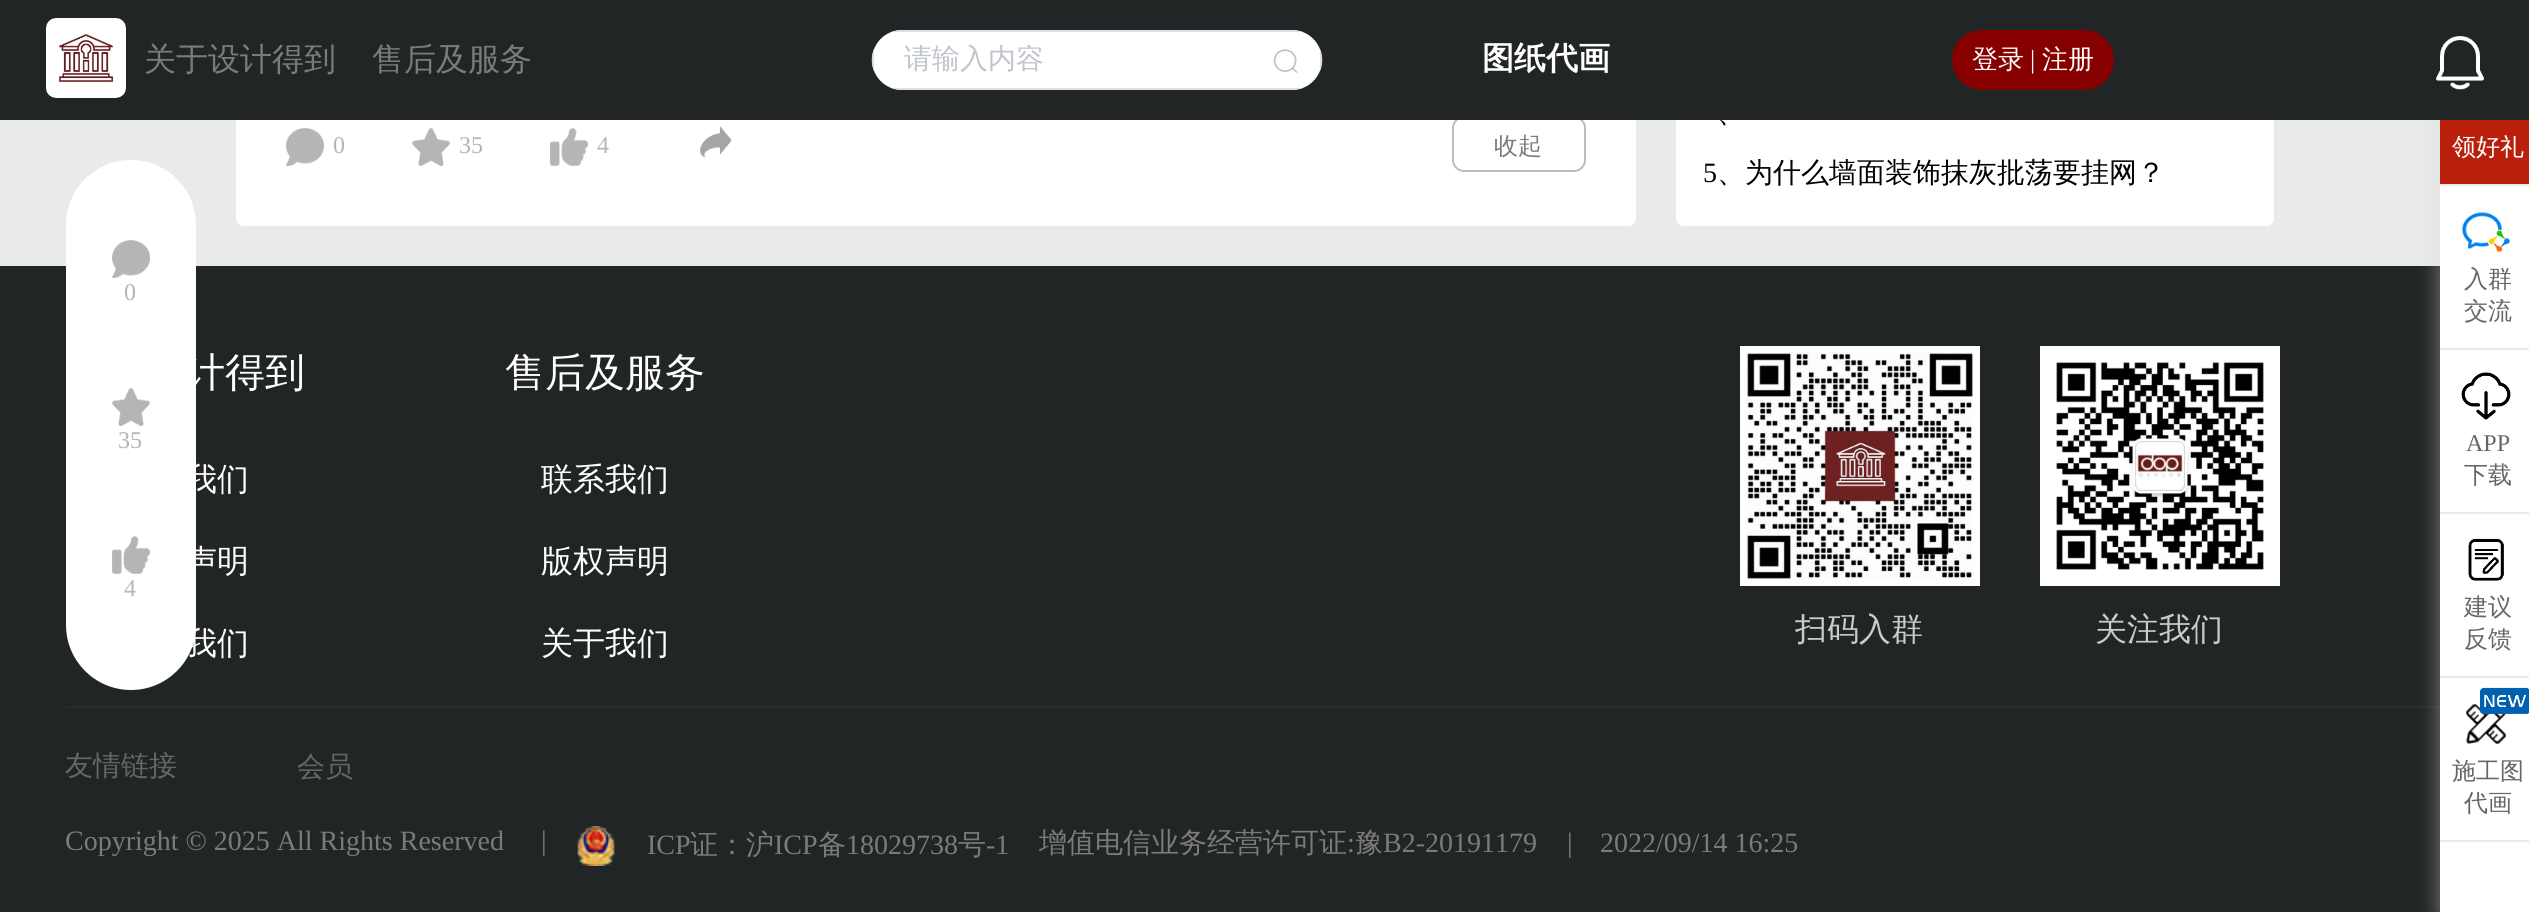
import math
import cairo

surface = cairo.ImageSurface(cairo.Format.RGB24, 2529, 912)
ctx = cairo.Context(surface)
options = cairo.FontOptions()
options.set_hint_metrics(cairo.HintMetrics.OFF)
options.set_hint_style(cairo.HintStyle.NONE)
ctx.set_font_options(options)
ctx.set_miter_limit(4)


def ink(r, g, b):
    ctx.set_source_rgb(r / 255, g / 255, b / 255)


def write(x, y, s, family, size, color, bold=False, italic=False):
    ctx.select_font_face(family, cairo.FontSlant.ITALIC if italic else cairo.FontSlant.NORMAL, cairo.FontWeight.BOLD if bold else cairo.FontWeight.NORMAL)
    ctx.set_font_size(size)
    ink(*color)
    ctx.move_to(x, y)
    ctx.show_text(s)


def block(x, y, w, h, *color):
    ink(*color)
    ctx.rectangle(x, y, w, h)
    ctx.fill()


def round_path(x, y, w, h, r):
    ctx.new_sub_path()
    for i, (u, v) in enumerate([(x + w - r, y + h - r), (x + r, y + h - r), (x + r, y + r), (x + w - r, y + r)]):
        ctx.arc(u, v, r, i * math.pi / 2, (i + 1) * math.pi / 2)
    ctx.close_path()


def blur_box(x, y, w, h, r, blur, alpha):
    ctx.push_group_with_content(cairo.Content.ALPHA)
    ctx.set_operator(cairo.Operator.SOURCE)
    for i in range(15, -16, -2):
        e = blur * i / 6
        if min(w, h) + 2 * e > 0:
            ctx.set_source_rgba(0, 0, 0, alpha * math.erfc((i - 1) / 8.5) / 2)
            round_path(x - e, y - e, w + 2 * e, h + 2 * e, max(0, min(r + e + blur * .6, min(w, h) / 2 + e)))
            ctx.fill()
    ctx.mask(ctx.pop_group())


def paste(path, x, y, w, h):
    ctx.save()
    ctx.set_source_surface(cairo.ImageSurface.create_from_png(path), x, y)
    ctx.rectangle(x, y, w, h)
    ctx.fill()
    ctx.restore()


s1 = dict(family="WenQuanYi Zen Hei Medium", size=28, color=(0, 0, 0))
s2 = dict(family="WenQuanYi Zen Hei Medium", size=32, color=(123, 123, 123))
s3 = dict(family="WenQuanYi Zen Hei Medium", size=28, color=(192, 196, 204))
s4 = dict(family="WenQuanYi Zen Hei", size=32, color=(255, 255, 255), bold=True)
s5 = dict(family="WenQuanYi Zen Hei Medium", size=26, color=(255, 255, 255))
s6 = dict(family="Liberation Serif", size=26, color=(255, 255, 255))
s7 = dict(family="Liberation Serif", size=24, color=(180, 181, 181))
s8 = dict(family="WenQuanYi Zen Hei Medium", size=24, color=(123, 123, 123))
s9 = dict(family="Liberation Serif", size=28, color=(0, 0, 0))
s10 = dict(family="WenQuanYi Zen Hei Medium", size=24, color=(255, 255, 255))
s11 = dict(family="WenQuanYi Zen Hei Medium", size=24, color=(102, 102, 102))
s12 = dict(family="Liberation Serif", size=24, color=(102, 102, 102))
s13 = dict(family="WenQuanYi Zen Hei Medium", size=40, color=(255, 255, 255))
s14 = dict(family="WenQuanYi Zen Hei Medium", size=32, color=(255, 255, 255))
s15 = dict(family="WenQuanYi Zen Hei Medium", size=32, color=(203, 203, 203))
s16 = dict(family="WenQuanYi Zen Hei Medium", size=28, color=(102, 102, 102))
s17 = dict(family="Liberation Serif", size=28, color=(123, 123, 123))
s18 = dict(family="WenQuanYi Zen Hei Medium", size=28, color=(123, 123, 123))

ink(233, 234, 235)
ctx.paint()
ink(255, 255, 255)
round_path(236, -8, 1400, 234, 8)
ctx.fill()
round_path(1453, 117, 132, 54, 11)
ink(189, 189, 189)
ctx.stroke()
ink(255, 255, 255)
round_path(1676, -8, 598, 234, 8)
ctx.fill()
write(1717, 122, "、", **s1)
block(0, 266, 2440, 646, 34, 37, 38)
block(66, 706, 2374, 2, 41, 44, 45)
ink(214, 214, 214)
blur_box(2438, 0, 90, 912, 0, 10, 0.44)
block(0, 0, 2529, 120, 34, 37, 38)
paste("pic1.png", 46, 18, 80, 80)
write(144, 70, "关于设计得到", **s2)
write(372, 70, "售后及服务", **s2)
ink(255, 255, 255)
round_path(872, 30, 450, 60, 30)
ctx.fill()
ink(220, 223, 230)
ctx.set_fill_rule(cairo.FillRule.EVEN_ODD)
ctx.new_path()
ctx.move_to(902, 90)
ctx.line_to(1292, 90)
ctx.curve_to(1296, 90, 1299, 89, 1303, 88)
ctx.line_to(891, 88)
ctx.curve_to(895, 89, 898, 90, 902, 90)
ctx.close_path()
ctx.move_to(874, 71)
ctx.curve_to(871, 64, 871, 56, 874, 49)
ctx.close_path()
ctx.move_to(902, 30)
ctx.curve_to(898, 30, 895, 31, 891, 32)
ctx.line_to(1303, 32)
ctx.curve_to(1299, 31, 1296, 30, 1292, 30)
ctx.close_path()
ctx.move_to(1320, 49)
ctx.line_to(1320, 71)
ctx.curve_to(1323, 64, 1323, 56, 1320, 49)
ctx.close_path()
ctx.fill()
write(904, 68, "请输入内容", **s3)
paste("pic2.png", 1273, 49, 25, 24)
write(1482, 69, "图纸代画", **s4)
ink(135, 0, 0)
round_path(1952, 30, 162, 60, 30)
ctx.fill()
write(1972, 68, "登录", **s5)
write(2030, 68, "|", **s6)
write(2042, 68, "注册", **s5)
paste("pic3.png", 2436, 36, 48, 54)
paste("pic4.png", 286, 128, 38, 38)
write(333, 153, "0", **s7)
paste("pic5.png", 412, 128, 38, 38)
write(459, 153, "35", **s7)
paste("pic6.png", 550, 128, 38, 38)
write(597, 153, "4", **s7)
paste("pic7.png", 700, 126, 32, 32)
write(1494, 154, "收起", **s8)
write(1703, 182, "5", **s9)
write(1717, 182, "、为什么墙面装饰抹灰批荡要挂网？", **s1)
ink(255, 255, 255)
round_path(66, 160, 130, 530, 65)
ctx.fill()
paste("pic8.png", 112, 240, 38, 38)
write(124, 300, "0", **s7)
paste("pic9.png", 112, 388, 38, 38)
write(118, 448, "35", **s7)
paste("pic10.png", 112, 536, 38, 38)
write(124, 596, "4", **s7)
block(2440, 186, 89, 726, 255, 255, 255)
block(2440, 184, 89, 2, 234, 234, 234)
block(2440, 120, 89, 64, 185, 32, 11)
write(2452, 155, "领好礼", **s10)
block(2440, 348, 89, 2, 234, 234, 234)
paste("pic11.png", 2462, 212, 48, 41)
write(2464, 287, "入群", **s11)
write(2464, 319, "交流", **s11)
block(2440, 512, 89, 2, 234, 234, 234)
paste("pic12.png", 2461, 372, 50, 48)
write(2466, 451, "APP", **s12)
write(2464, 483, "下载", **s11)
block(2440, 676, 89, 2, 234, 234, 234)
paste("pic13.png", 2468, 538, 36, 43)
write(2464, 615, "建议", **s11)
write(2464, 647, "反馈", **s11)
block(2440, 840, 89, 2, 234, 234, 234)
paste("pic15.png", 2466, 704, 40, 40)
paste("pic14.png", 2480, 687, 49, 27)
write(2452, 779, "施工图", **s11)
write(2464, 811, "代画", **s11)
write(185, 386, "计得到", **s13)
write(185, 490, "我们", **s14)
write(185, 572, "声明", **s14)
write(185, 654, "我们", **s14)
write(505, 386, "售后及服务", **s13)
write(541, 490, "联系我们", **s14)
write(541, 572, "版权声明", **s14)
write(541, 654, "关于我们", **s14)
block(1740, 346, 240, 240, 255, 255, 255)
paste("pic16.png", 1746, 352, 228, 228)
write(1795, 640, "扫码入群", **s15)
block(2040, 346, 240, 240, 255, 255, 255)
paste("pic17.png", 2056, 361, 208, 209)
write(2095, 640, "关注我们", **s15)
write(65, 775, "友情链接", **s16)
write(297, 776, "会员", **s16)
write(65, 850, "Copyright © 2025 All Rights Reserved", **s17)
write(541, 850, "|", **s17)
paste("pic18.png", 577, 826, 38, 40)
write(647, 854, "ICP", **s17)
write(690, 854, "证：沪", **s18)
write(774, 854, "ICP", **s17)
write(818, 854, "备", **s18)
write(846, 854, "18029738", **s17)
write(958, 854, "号", **s18)
write(986, 854, "-1", **s17)
write(1039, 852, "增值电信业务经营许可证", **s18)
write(1347, 852, ":", **s17)
write(1355, 852, "豫", **s18)
write(1383, 852, "B2-20191179", **s17)
write(1567, 852, "|", **s17)
write(1600, 852, "2022/09/14 16:25", **s17)
surface.write_to_png("screenshot.png")
